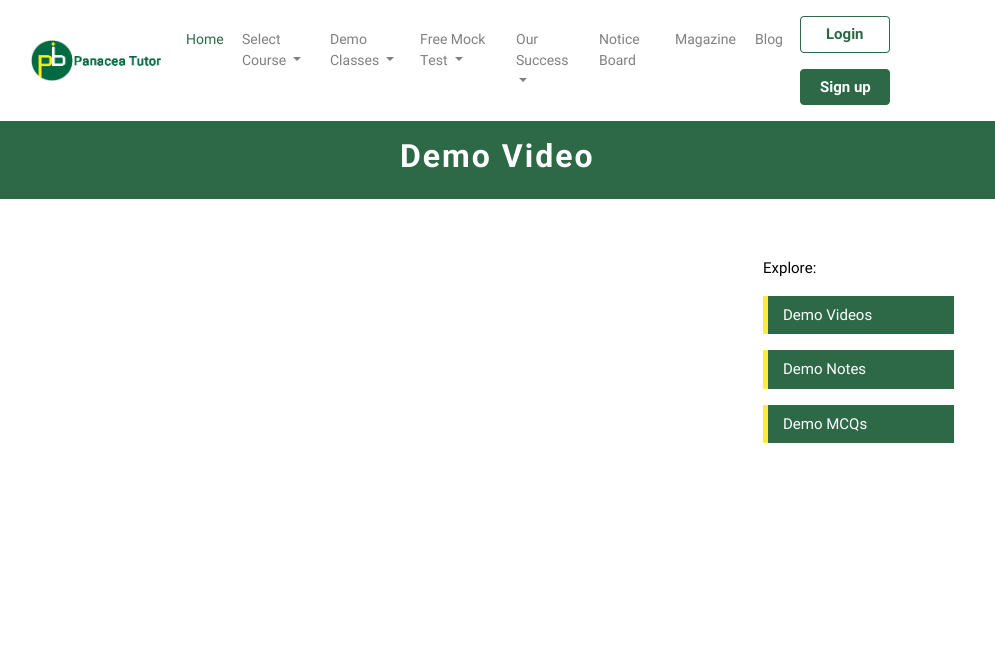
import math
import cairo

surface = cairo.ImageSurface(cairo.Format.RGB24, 995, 667)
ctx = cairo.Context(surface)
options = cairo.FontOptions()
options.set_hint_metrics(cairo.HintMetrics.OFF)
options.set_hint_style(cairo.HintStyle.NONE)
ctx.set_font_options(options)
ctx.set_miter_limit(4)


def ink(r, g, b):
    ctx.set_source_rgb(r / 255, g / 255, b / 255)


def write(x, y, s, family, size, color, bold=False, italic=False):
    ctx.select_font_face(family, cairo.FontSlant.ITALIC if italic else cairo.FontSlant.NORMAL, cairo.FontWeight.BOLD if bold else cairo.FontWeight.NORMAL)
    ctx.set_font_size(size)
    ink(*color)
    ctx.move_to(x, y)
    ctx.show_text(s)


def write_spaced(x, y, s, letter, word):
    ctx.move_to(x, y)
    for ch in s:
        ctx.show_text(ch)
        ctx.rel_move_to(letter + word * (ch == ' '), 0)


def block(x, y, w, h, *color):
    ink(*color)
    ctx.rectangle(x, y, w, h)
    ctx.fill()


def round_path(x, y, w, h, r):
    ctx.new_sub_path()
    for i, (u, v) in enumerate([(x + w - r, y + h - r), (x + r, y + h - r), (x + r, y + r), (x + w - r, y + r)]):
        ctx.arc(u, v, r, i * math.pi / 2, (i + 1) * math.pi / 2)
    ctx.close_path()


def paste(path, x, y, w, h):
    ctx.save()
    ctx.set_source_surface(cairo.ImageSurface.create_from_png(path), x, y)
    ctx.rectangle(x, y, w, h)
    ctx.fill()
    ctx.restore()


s1 = dict(family="Roboto", size=14, color=(45, 105, 71))
s2 = dict(family="Roboto", size=14, color=(128, 128, 128))
s3 = dict(family="Roboto", size=15, color=(45, 105, 71), bold=True)
s4 = dict(family="Roboto", size=15, color=(255, 255, 255), bold=True)
s5 = dict(family="Roboto", size=15, color=(0, 0, 0))
s6 = dict(family="Roboto", size=15, color=(255, 255, 255))

ink(255, 255, 255)
ctx.paint()
paste("pic1.png", 31, 40, 130, 41)
write(186, 44, "Home", **s1)
write(242, 44, "Select", **s2)
write(242, 65, "Course", **s2)
ctx.new_path()
ctx.move_to(293, 57)
ctx.line_to(301, 57)
ctx.line_to(297, 61)
ctx.close_path()
ctx.fill()
write(330, 44, "Demo", **s2)
write(330, 65, "Classes", **s2)
ctx.new_path()
ctx.move_to(386, 57)
ctx.line_to(394, 57)
ctx.line_to(390, 61)
ctx.close_path()
ctx.fill()
write(420, 44, "Free Mock", **s2)
write(420, 65, "Test", **s2)
ctx.new_path()
ctx.move_to(455, 57)
ctx.line_to(463, 57)
ctx.line_to(459, 61)
ctx.close_path()
ctx.fill()
write(516, 44, "Our", **s2)
write(516, 65, "Success", **s2)
ctx.new_path()
ctx.move_to(519, 78)
ctx.line_to(527, 78)
ctx.line_to(523, 82)
ctx.close_path()
ctx.fill()
write(599, 44, "Notice", **s2)
write(599, 65, "Board", **s2)
write(675, 44, "Magazine", **s2)
write(755, 44, "Blog", **s2)
round_path(800.5, 16.5, 89, 36, 3.5)
ink(45, 105, 71)
ctx.set_line_width(1)
ctx.stroke()
write(826, 39, "Login", **s3)
round_path(800.5, 69.5, 89, 35, 3.5)
ctx.fill_preserve()
ctx.stroke()
write(820, 92, "Sign up", **s4)
block(0, 121, 995, 78, 45, 105, 71)
ctx.set_font_size(32)
ink(255, 255, 255)
write_spaced(400, 167, "Demo Video", 2, 0)
write(763, 273, "Explore:", **s5)
block(768, 296, 186, 38, 45, 105, 71)
block(763, 296, 5, 38, 255, 235, 59)
write(783, 320, "Demo Videos", **s6)
block(768, 350, 186, 39, 45, 105, 71)
block(763, 350, 5, 39, 255, 235, 59)
write(783, 374, "Demo Notes", **s6)
block(768, 405, 186, 38, 45, 105, 71)
block(763, 405, 5, 38, 255, 235, 59)
write(783, 429, "Demo MCQs", **s6)
surface.write_to_png("screenshot.png")
